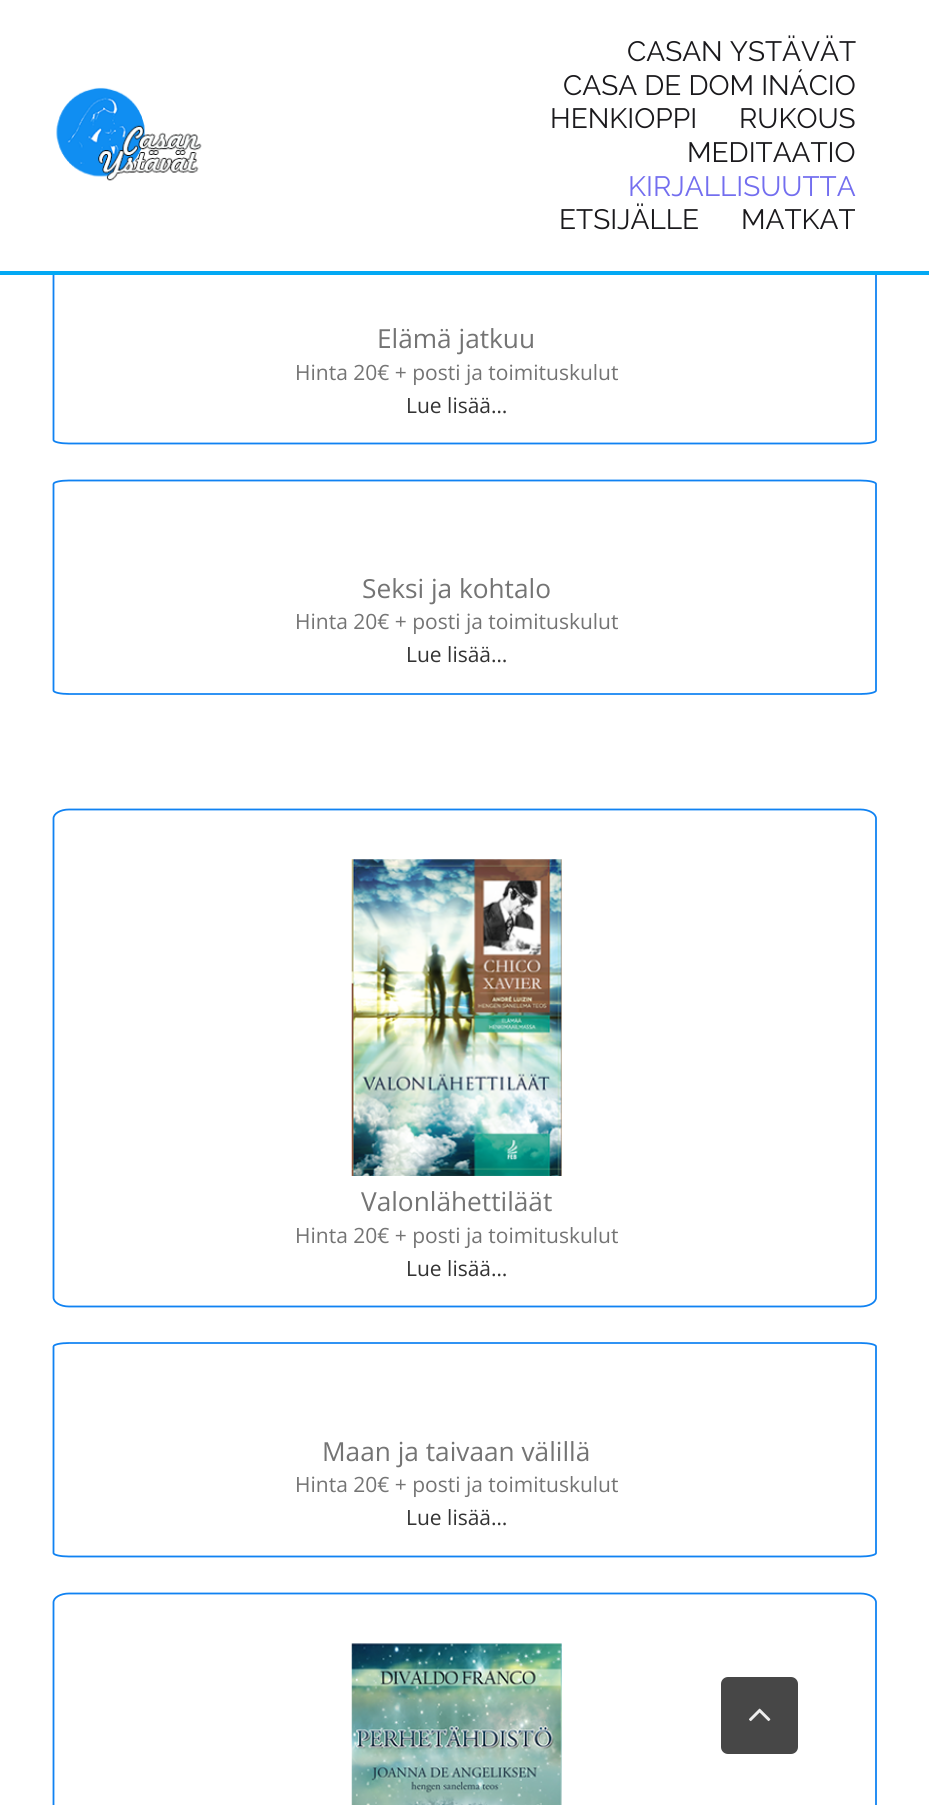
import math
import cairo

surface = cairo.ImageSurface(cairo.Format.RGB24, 929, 1805)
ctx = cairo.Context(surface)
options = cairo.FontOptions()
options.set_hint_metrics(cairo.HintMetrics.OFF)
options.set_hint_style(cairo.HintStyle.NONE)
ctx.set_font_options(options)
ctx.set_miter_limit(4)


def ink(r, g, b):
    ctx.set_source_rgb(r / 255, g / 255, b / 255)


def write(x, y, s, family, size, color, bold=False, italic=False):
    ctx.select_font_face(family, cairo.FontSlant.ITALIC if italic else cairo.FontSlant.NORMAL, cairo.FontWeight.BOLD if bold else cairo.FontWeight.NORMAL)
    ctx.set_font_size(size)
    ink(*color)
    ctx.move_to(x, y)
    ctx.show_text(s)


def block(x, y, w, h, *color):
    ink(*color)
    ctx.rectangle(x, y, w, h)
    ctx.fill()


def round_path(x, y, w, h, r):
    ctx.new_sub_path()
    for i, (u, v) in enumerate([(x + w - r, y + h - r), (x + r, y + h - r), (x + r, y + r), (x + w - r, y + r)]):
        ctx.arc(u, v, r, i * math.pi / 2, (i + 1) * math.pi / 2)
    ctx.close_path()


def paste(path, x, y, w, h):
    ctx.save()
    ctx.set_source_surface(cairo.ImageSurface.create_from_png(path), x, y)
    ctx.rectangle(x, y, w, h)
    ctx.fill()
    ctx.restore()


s1 = dict(family="Raleway", size=28, color=(26, 25, 28))
s2 = dict(family="Raleway", size=28, color=(115, 110, 239))
s3 = dict(family="Open Sans", size=26.25, color=(116, 116, 116))
s4 = dict(family="Open Sans", size=21, color=(116, 116, 116))
s5 = dict(family="Open Sans", size=21, color=(51, 51, 51))

ink(255, 255, 255)
ctx.paint()
ctx.new_path()
ctx.move_to(69, 232)
ctx.line_to(860.5, 232)
ctx.curve_to(869, 232, 876, 233.5, 876, 235.5)
ctx.line_to(876, 440)
ctx.curve_to(876, 442, 869, 443.5, 860.5, 443.5)
ctx.line_to(69, 443.5)
ctx.curve_to(60.5, 443.5, 53.5, 442, 53.5, 440)
ctx.line_to(53.5, 235.5)
ctx.curve_to(53.5, 233.5, 60.5, 232, 69, 232)
ctx.close_path()
ink(16, 130, 242)
ctx.set_line_width(1.8)
ctx.stroke()
block(52, 231, 825, 40, 255, 255, 255)
block(0, 271, 929, 4, 3, 169, 244)
paste("pic1.png", 56, 87, 146, 94)
write(627, 61, "CASAN YSTÄVÄT", **s1)
write(563, 95, "CASA DE DOM INÁCIO", **s1)
write(550, 128, "HENKIOPPI", **s1)
write(739, 128, "RUKOUS", **s1)
write(687, 162, "MEDITAATIO", **s1)
write(628, 196, "KIRJALLISUUTTA", **s2)
write(559, 229, "ETSIJÄLLE", **s1)
write(741, 229, "MATKAT", **s1)
write(377, 348, "Elämä jatkuu", **s3)
write(295, 380, "Hinta 20€ + posti ja toimituskulut", **s4)
write(406, 413, "Lue lisää…", **s5)
ctx.new_path()
ctx.move_to(69, 480.5)
ctx.line_to(860.5, 480.5)
ctx.curve_to(869, 480.5, 876, 482, 876, 484)
ctx.line_to(876, 690.5)
ctx.curve_to(876, 692.5, 869, 694, 860.5, 694)
ctx.line_to(69, 694)
ctx.curve_to(60.5, 694, 53.5, 692.5, 53.5, 690.5)
ctx.line_to(53.5, 484)
ctx.curve_to(53.5, 482, 60.5, 480.5, 69, 480.5)
ctx.close_path()
ink(16, 130, 242)
ctx.stroke()
write(362, 598, "Seksi ja kohtalo", **s3)
write(295, 629, "Hinta 20€ + posti ja toimituskulut", **s4)
write(406, 662, "Lue lisää…", **s5)
ctx.new_path()
ctx.move_to(69, 809.5)
ctx.line_to(860.5, 809.5)
ctx.curve_to(869, 809.5, 876, 813.5, 876, 818.5)
ctx.line_to(876, 1297.5)
ctx.curve_to(876, 1302.5, 869, 1306.5, 860.5, 1306.5)
ctx.line_to(69, 1306.5)
ctx.curve_to(60.5, 1306.5, 53.5, 1302.5, 53.5, 1297.5)
ctx.line_to(53.5, 818.5)
ctx.curve_to(53.5, 813.5, 60.5, 809.5, 69, 809.5)
ctx.close_path()
ink(16, 130, 242)
ctx.stroke()
paste("pic2.png", 351, 859, 211, 317)
write(361, 1211, "Valonlähettiläät", **s3)
write(295, 1243, "Hinta 20€ + posti ja toimituskulut", **s4)
write(406, 1276, "Lue lisää…", **s5)
ctx.new_path()
ctx.move_to(69, 1343)
ctx.line_to(860.5, 1343)
ctx.curve_to(869, 1343, 876, 1344.5, 876, 1346.5)
ctx.line_to(876, 1553)
ctx.curve_to(876, 1555, 869, 1556.5, 860.5, 1556.5)
ctx.line_to(69, 1556.5)
ctx.curve_to(60.5, 1556.5, 53.5, 1555, 53.5, 1553)
ctx.line_to(53.5, 1346.5)
ctx.curve_to(53.5, 1344.5, 60.5, 1343, 69, 1343)
ctx.close_path()
ink(16, 130, 242)
ctx.stroke()
write(322, 1461, "Maan ja taivaan välillä", **s3)
write(295, 1492, "Hinta 20€ + posti ja toimituskulut", **s4)
write(406, 1525, "Lue lisää…", **s5)
ctx.new_path()
ctx.move_to(69, 1593.5)
ctx.line_to(860.5, 1593.5)
ctx.curve_to(869, 1593.5, 876, 1597.5, 876, 1602.5)
ctx.line_to(876, 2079.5)
ctx.curve_to(876, 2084.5, 869, 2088.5, 860.5, 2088.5)
ctx.line_to(69, 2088.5)
ctx.curve_to(60.5, 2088.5, 53.5, 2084.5, 53.5, 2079.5)
ctx.line_to(53.5, 1602.5)
ctx.curve_to(53.5, 1597.5, 60.5, 1593.5, 69, 1593.5)
ctx.close_path()
ink(16, 130, 242)
ctx.stroke()
paste("pic3.png", 351, 1643, 211, 162)
ink(71, 71, 71)
round_path(721, 1677, 77, 77, 7)
ctx.fill()
paste("pic4.png", 749, 1708, 22, 14)
surface.write_to_png("screenshot.png")
